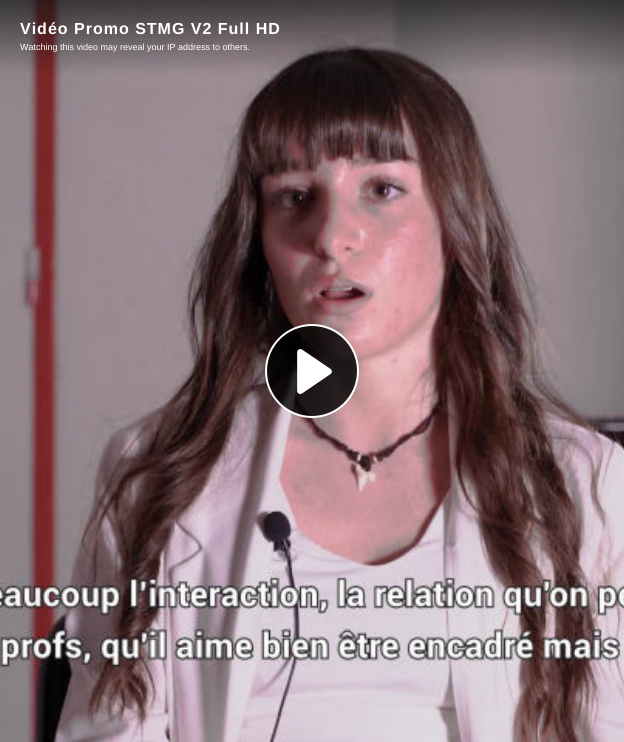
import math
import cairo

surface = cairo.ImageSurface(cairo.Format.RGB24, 624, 742)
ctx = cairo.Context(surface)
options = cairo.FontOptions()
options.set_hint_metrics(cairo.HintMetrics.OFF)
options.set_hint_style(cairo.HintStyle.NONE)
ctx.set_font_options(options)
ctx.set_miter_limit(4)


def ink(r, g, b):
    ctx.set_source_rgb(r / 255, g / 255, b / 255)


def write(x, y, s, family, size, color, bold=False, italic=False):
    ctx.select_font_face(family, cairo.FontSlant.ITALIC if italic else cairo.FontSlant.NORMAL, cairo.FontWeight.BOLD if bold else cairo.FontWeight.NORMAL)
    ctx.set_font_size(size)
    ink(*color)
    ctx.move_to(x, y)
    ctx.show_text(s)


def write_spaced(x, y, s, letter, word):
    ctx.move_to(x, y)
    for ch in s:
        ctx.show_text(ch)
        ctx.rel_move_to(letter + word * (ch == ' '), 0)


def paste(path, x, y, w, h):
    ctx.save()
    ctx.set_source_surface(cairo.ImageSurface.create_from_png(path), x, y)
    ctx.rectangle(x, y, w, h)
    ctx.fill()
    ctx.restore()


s1 = dict(family="Liberation Sans", size=9, color=(255, 255, 255))

ink(255, 255, 255)
ctx.paint()
paste("pic1.png", 0, 0, 624, 742)
ctx.select_font_face("Liberation Sans", cairo.FontSlant.NORMAL, cairo.FontWeight.BOLD)
ctx.set_font_size(16)
ink(255, 255, 255)
write_spaced(20, 34, "Vidéo Promo STMG V2 Full HD", 1, 0)
write(20, 50, "Watching this video may reveal your IP address to others.", **s1)
ctx.set_source_rgba(0, 0, 0, 0.8)
ctx.new_path()
ctx.arc(312, 371, 46, 0, 2 * math.pi)
ctx.fill_preserve()
ink(255, 255, 255)
ctx.stroke()
paste("pic2.png", 297, 349, 35, 45)
surface.write_to_png("screenshot.png")
